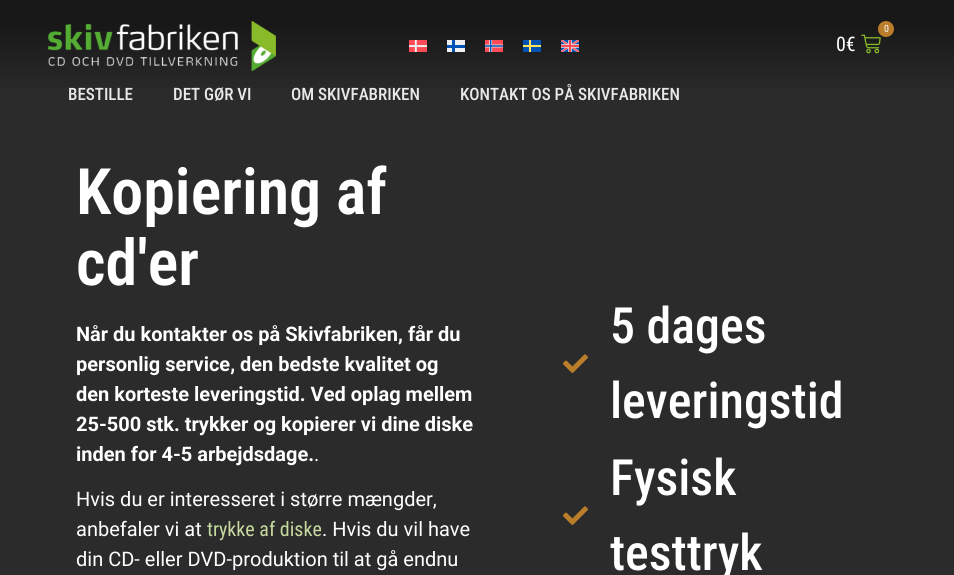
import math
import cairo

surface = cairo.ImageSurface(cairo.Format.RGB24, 954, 575)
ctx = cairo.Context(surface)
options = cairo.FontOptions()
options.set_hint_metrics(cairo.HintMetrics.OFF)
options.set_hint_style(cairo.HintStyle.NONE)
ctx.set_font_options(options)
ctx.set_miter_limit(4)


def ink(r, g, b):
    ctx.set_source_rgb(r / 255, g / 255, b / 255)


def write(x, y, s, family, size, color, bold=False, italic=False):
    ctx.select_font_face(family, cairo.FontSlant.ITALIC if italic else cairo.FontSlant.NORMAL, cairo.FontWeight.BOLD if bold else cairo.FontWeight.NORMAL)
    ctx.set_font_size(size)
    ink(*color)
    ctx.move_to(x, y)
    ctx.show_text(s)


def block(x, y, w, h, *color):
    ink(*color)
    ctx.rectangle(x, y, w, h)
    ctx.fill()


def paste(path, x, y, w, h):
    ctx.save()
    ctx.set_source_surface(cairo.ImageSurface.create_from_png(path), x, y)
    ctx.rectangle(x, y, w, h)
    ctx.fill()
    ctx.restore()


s1 = dict(family="Roboto Condensed", size=10, color=(255, 255, 255))
s2 = dict(family="Roboto Condensed", size=20, color=(255, 255, 255))
s3 = dict(family="Roboto Condensed Medium", size=17, color=(233, 233, 233))
s4 = dict(family="Roboto Condensed SemiBold", size=64, color=(255, 255, 255))
s5 = dict(family="Roboto", size=20, color=(255, 255, 255), bold=True)
s6 = dict(family="Roboto", size=20, color=(255, 255, 255))
s7 = dict(family="Roboto Condensed", size=20, color=(198, 218, 160))
s8 = dict(family="Roboto Condensed Medium", size=50, color=(255, 255, 255))

ink(43, 43, 43)
ctx.paint()
gradient = cairo.LinearGradient(477, 119, 477, 0)
gradient.add_color_stop_rgba(0.18, 0.169, 0.169, 0.169, 1)
gradient.add_color_stop_rgba(0.79, 0.094, 0.094, 0.094, 1)
ctx.set_source(gradient)
ctx.rectangle(0, 0, 954, 88)
ctx.fill()
paste("pic1.png", 47, 21, 229, 50)
paste("pic2.png", 409, 40, 18, 12)
block(447, 40, 18, 12, 240, 240, 240)
block(447, 45, 18, 3, 0, 82, 180)
block(452, 40, 3, 12, 0, 82, 180)
paste("pic3.png", 485, 40, 18, 12)
block(523, 40, 18, 12, 0, 82, 180)
block(529, 40, 2, 12, 255, 225, 90)
block(523, 45, 18, 2, 255, 225, 90)
paste("pic4.png", 561, 40, 18, 12)
paste("pic5.png", 861, 34, 20, 20)
ink(186, 125, 42)
ctx.arc(886, 29, 8, 0, 2 * math.pi)
ctx.fill()
write(884, 32, "0", **s1)
write(836, 51, "0€", **s2)
write(68, 100, "BESTILLE", **s3)
write(173, 100, "DET GØR VI", **s3)
write(291, 100, "OM SKIVFABRIKEN", **s3)
write(460, 100, "KONTAKT OS PÅ SKIVFABRIKEN", **s3)
write(76, 214, "Kopiering af", **s4)
write(76, 285, "cd'er", **s4)
write(76, 341, "Når du kontakter os på Skivfabriken, får du", **s5)
write(76, 371, "personlig service, den bedste kvalitet og", **s5)
write(76, 401, "den korteste leveringstid. Ved oplag mellem", **s5)
write(76, 431, "25-500 stk. trykker og kopierer vi dine diske", **s5)
write(76, 461, "inden for 4-5 arbejdsdage.", **s5)
write(314, 461, ".", **s6)
write(76, 506, "Hvis du er interesseret i større mængder,", **s6)
write(76, 536, "anbefaler vi at", **s6)
write(207, 536, "trykke af diske", **s7)
write(322, 536, ". Hvis du vil have", **s6)
write(76, 566, "din CD- eller DVD-produktion til at gå endnu", **s6)
paste("pic6.png", 563, 354, 25, 19)
write(610, 343, "5 dages", **s8)
write(610, 418, "leveringstid", **s8)
paste("pic6.png", 563, 506, 25, 19)
write(610, 495, "Fysisk", **s8)
write(610, 570, "testtryk", **s8)
surface.write_to_png("screenshot.png")
